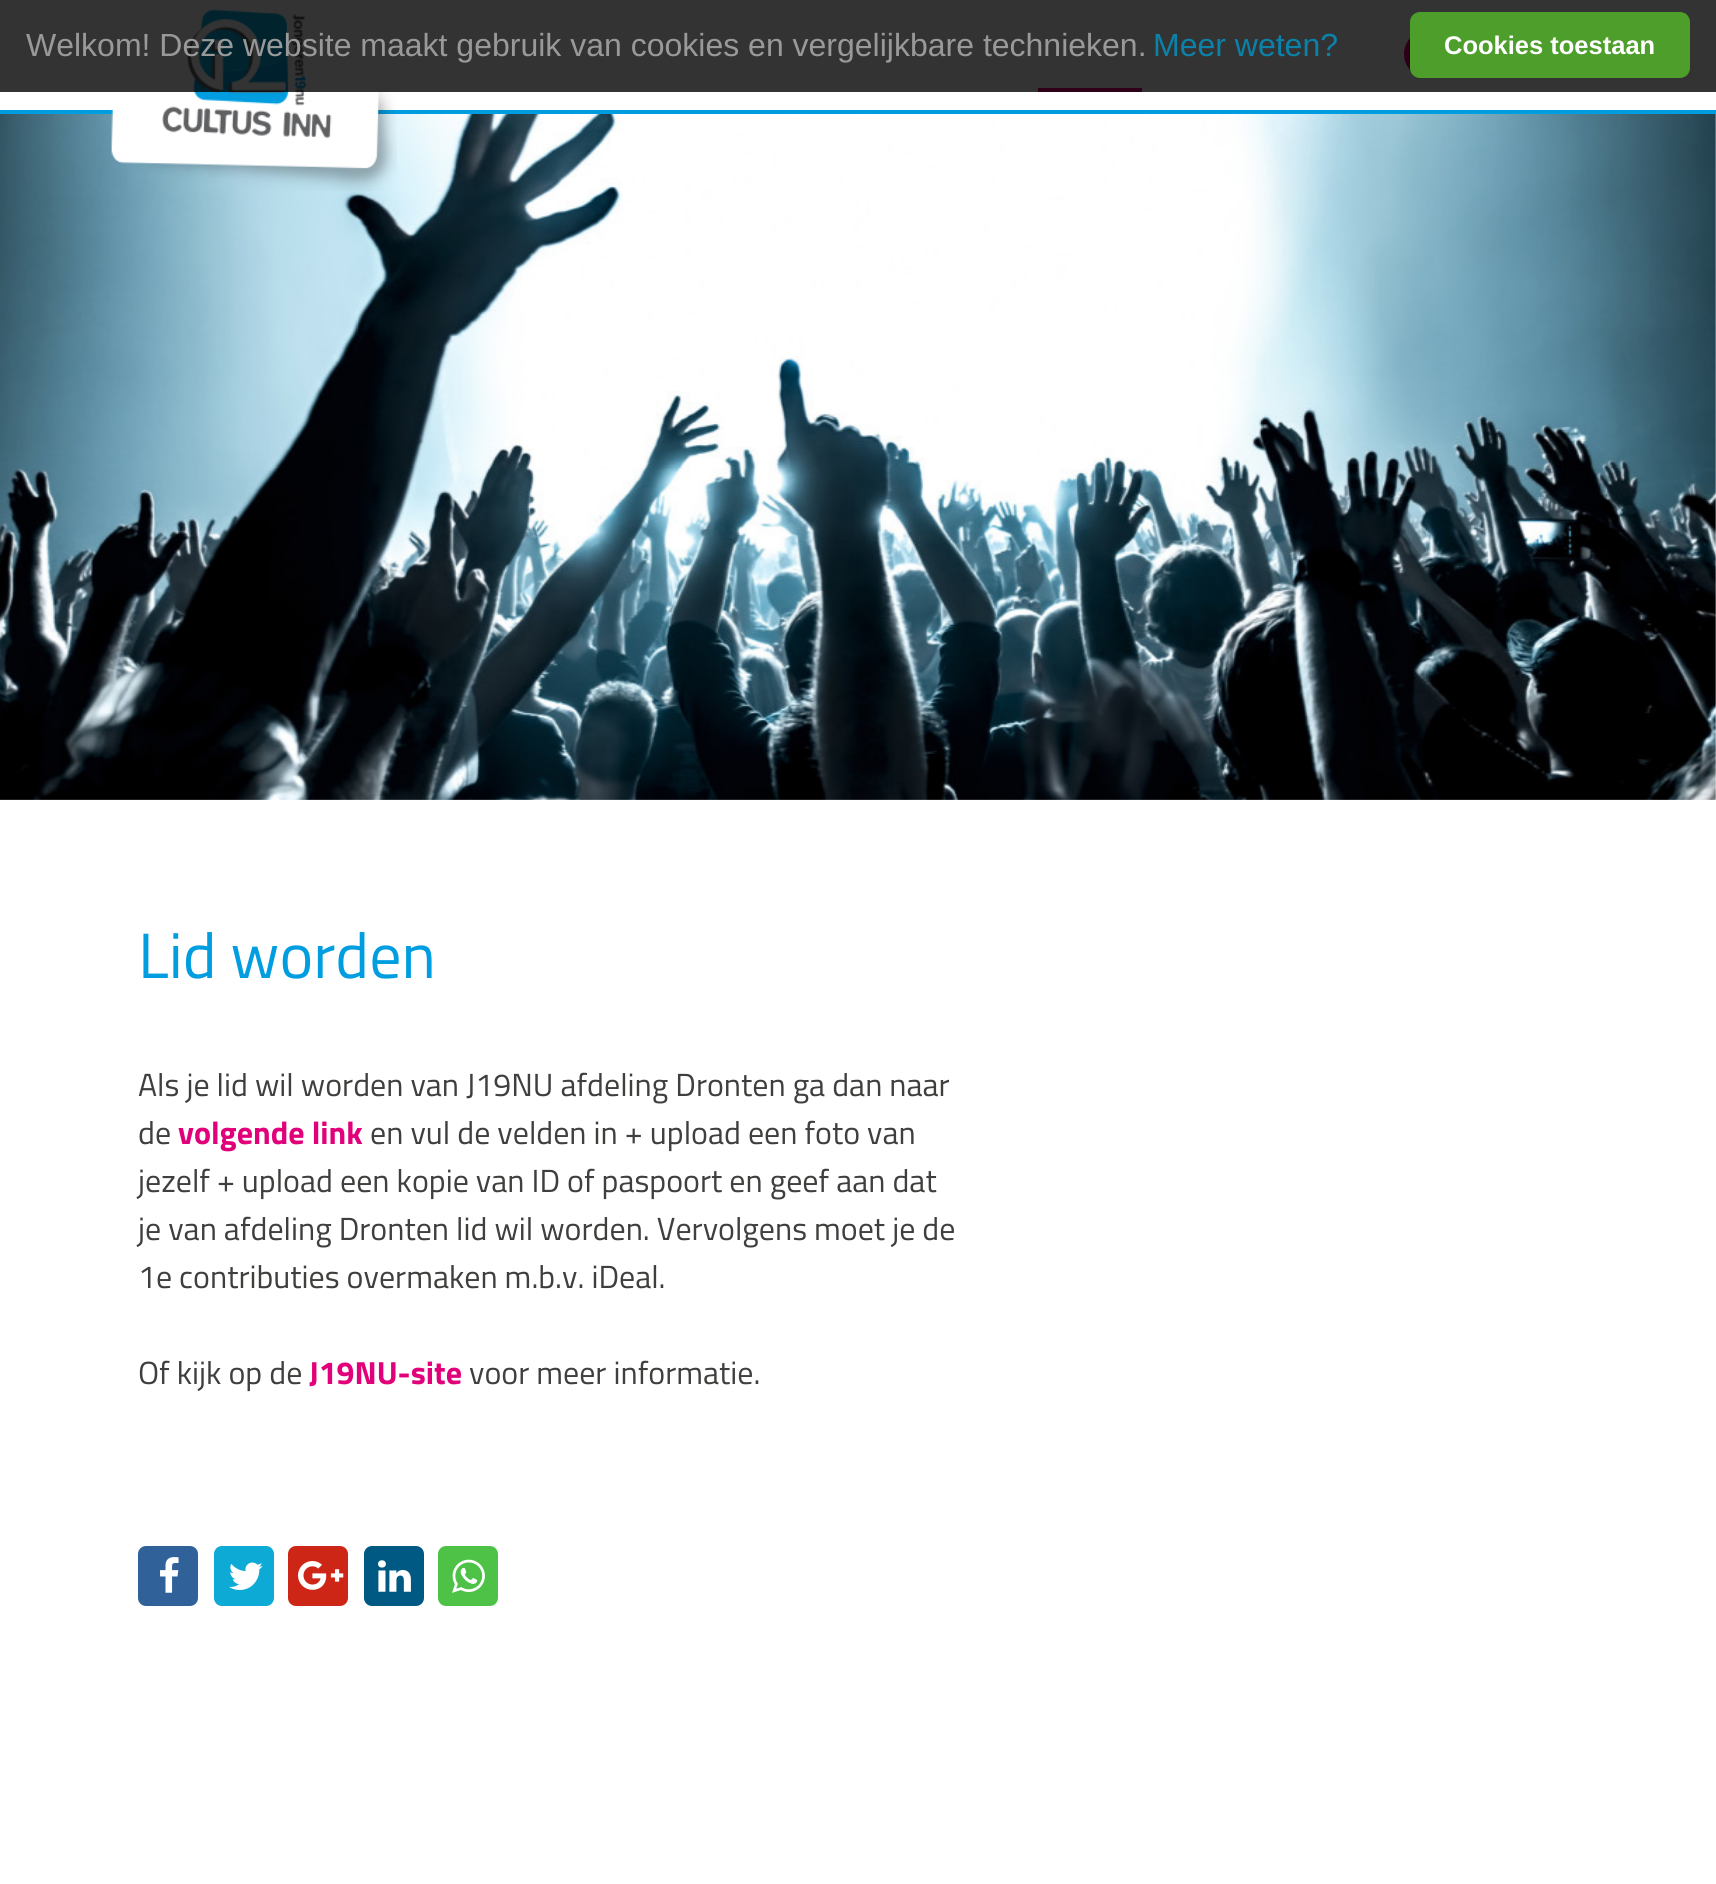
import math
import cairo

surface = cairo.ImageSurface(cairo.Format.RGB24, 1716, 1884)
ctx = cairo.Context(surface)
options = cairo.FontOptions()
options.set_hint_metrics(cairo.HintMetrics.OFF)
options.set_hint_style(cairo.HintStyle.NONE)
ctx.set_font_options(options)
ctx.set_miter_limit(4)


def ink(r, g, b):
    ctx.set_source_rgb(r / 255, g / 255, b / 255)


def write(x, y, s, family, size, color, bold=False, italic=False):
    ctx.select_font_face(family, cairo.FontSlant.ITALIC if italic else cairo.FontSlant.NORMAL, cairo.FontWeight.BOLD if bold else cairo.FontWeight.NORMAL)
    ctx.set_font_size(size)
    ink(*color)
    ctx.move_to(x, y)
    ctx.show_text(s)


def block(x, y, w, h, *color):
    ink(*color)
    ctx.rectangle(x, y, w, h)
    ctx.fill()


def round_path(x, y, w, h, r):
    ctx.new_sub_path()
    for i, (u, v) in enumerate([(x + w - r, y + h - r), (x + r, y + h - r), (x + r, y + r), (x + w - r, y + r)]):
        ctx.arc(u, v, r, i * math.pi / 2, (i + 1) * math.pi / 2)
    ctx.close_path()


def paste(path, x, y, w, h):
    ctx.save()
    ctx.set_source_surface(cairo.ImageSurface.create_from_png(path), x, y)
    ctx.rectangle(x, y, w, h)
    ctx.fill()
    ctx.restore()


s1 = dict(family="Liberation Sans", size=32, color=(153, 153, 153))
s2 = dict(family="Liberation Sans", size=32, color=(10, 130, 169))
s3 = dict(family="Liberation Sans", size=25.5, color=(255, 255, 255), bold=True)
s4 = dict(family="Titillium Web", size=64, color=(0, 158, 224))
s5 = dict(family="Titillium Web", size=32, color=(62, 64, 61))
s6 = dict(family="Titillium Web", size=32, color=(225, 0, 121), bold=True)

ink(255, 255, 255)
ctx.paint()
block(0, 110, 1716, 4, 0, 158, 224)
paste("pic2.png", 0, 114, 1716, 686)
paste("pic1.png", 111, 9, 286, 182)
ink(225, 0, 121)
ctx.arc(1428, 54, 24, 0, 2 * math.pi)
ctx.fill()
block(1038, 88, 104, 4, 225, 0, 121)
ctx.set_source_rgba(0, 0, 0, 0.8)
ctx.rectangle(0, 0, 1716, 92)
ctx.fill()
write(26, 56, "Welkom! Deze website maakt gebruik van cookies en vergelijkbare technieken.", **s1)
write(1153, 56, "Meer weten?", **s2)
ink(78, 158, 43)
round_path(1412, 14, 276, 62, 8)
ctx.fill_preserve()
ctx.set_line_width(4)
ctx.stroke()
write(1444, 54, "Cookies toestaan", **s3)
write(138, 978, "Lid worden", **s4)
write(138, 1096, "Als je lid wil worden van J19NU afdeling Dronten ga dan naar", **s5)
write(138, 1144, "de", **s5)
write(178, 1144, "volgende link", **s6)
write(370, 1144, "en vul de velden in + upload een foto van", **s5)
write(138, 1192, "jezelf + upload een kopie van ID of paspoort en geef aan dat", **s5)
write(138, 1240, "je van afdeling Dronten lid wil worden. Vervolgens moet je de", **s5)
write(138, 1288, "1e contributies overmaken m.b.v. iDeal.", **s5)
write(138, 1384, "Of kijk op de", **s5)
write(309, 1384, "J19NU-site", **s6)
write(469, 1384, "voor meer informatie.", **s5)
ink(48, 97, 153)
round_path(138, 1546, 60, 60, 8)
ctx.fill()
paste("pic3.png", 160, 1557, 19, 36)
ink(14, 170, 214)
round_path(214, 1546, 60, 60, 8)
ctx.fill()
paste("pic4.png", 229, 1562, 34, 28)
ink(206, 38, 22)
round_path(288, 1546, 60, 60, 8)
ctx.fill()
paste("pic5.png", 298, 1561, 46, 29)
ink(0, 89, 131)
round_path(364, 1546, 60, 60, 8)
ctx.fill()
paste("pic6.png", 378, 1560, 33, 32)
ink(77, 194, 71)
round_path(438, 1546, 60, 60, 8)
ctx.fill()
paste("pic7.png", 452, 1559, 33, 34)
surface.write_to_png("screenshot.png")
